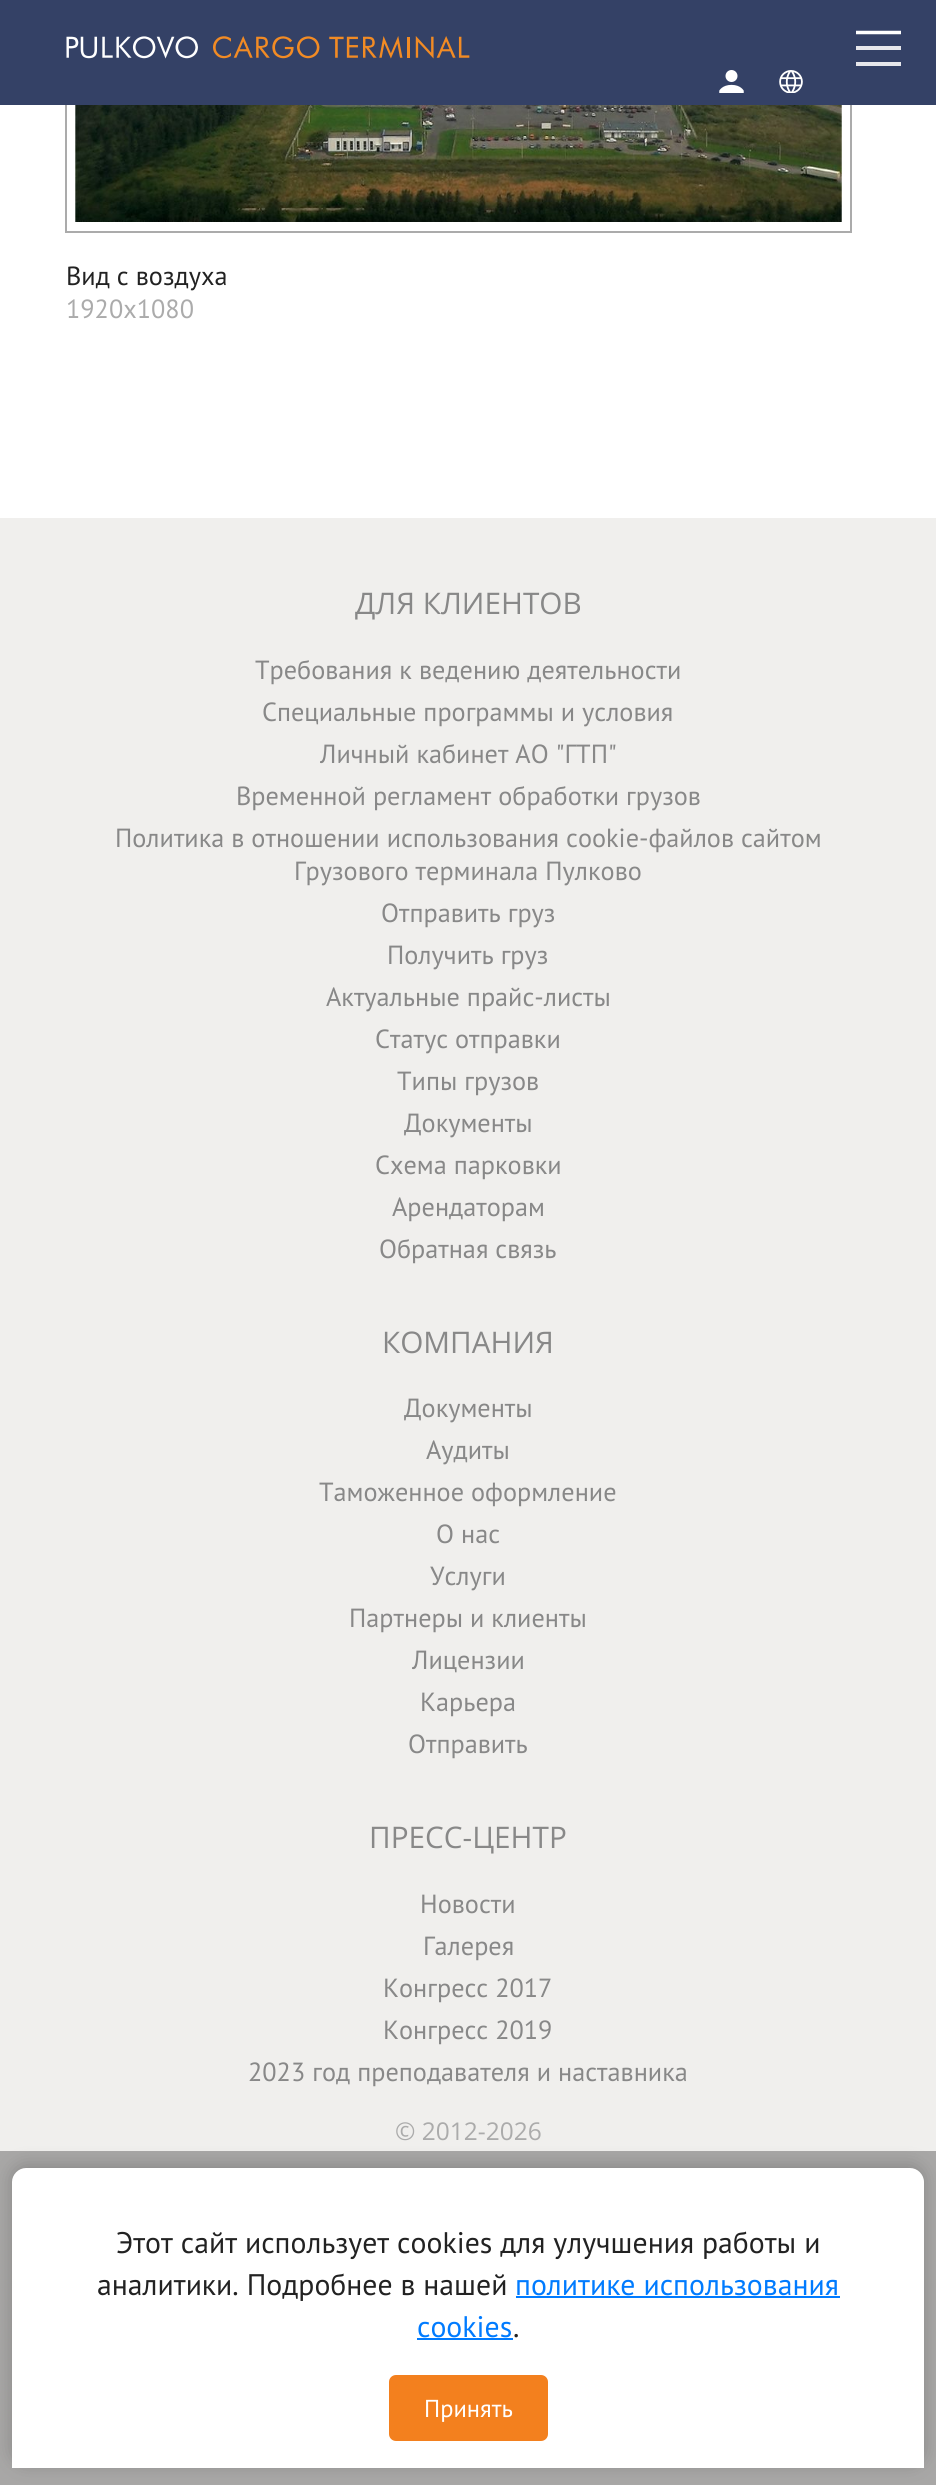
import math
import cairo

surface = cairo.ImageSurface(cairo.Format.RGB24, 936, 2485)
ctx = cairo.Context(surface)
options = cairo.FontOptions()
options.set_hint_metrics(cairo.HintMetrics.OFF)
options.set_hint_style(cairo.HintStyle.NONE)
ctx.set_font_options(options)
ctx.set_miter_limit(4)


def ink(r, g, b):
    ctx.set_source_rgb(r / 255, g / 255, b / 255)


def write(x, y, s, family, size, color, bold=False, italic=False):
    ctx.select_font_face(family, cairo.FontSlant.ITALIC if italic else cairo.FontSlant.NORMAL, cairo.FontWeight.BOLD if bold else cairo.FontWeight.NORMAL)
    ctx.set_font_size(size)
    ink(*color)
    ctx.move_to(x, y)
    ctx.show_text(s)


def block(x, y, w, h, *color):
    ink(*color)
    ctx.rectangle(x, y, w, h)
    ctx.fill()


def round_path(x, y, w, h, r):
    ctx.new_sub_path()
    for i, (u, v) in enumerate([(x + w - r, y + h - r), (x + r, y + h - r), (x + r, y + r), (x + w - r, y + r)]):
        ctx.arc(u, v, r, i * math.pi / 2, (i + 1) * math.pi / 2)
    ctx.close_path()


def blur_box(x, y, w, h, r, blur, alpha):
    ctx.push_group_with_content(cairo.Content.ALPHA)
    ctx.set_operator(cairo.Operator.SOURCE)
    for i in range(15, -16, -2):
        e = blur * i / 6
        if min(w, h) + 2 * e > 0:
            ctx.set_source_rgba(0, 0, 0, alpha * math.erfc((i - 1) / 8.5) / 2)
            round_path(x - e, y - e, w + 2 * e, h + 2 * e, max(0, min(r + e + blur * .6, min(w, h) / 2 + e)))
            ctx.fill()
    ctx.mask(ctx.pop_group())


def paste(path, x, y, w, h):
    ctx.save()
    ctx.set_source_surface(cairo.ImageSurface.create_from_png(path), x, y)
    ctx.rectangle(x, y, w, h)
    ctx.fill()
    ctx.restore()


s1 = dict(family="PT Sans", size=26.25, color=(34, 34, 34))
s2 = dict(family="PT Sans", size=26.25, color=(171, 171, 171))
s3 = dict(family="Open Sans", size=29.75, color=(136, 136, 136))
s4 = dict(family="PT Sans", size=26.25, color=(136, 136, 136))
s5 = dict(family="Open Sans", size=24.5, color=(171, 171, 171))
s6 = dict(family="PT Sans", size=29.75, color=(34, 34, 34))
s7 = dict(family="PT Sans", size=29.75, color=(0, 123, 255))
s8 = dict(family="PT Sans", size=24.5, color=(255, 255, 255))

ink(255, 255, 255)
ctx.paint()
ctx.rectangle(66, -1, 785, 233)
ink(171, 171, 171)
ctx.stroke()
block(0, 0, 936, 105, 52, 65, 102)
paste("pic1.png", 66, 36, 404, 23)
ctx.new_path()
ctx.move_to(856, 32.5)
ctx.line_to(901, 32.5)
ink(255, 255, 255)
ctx.set_line_width(3.5)
ctx.stroke()
block(856, 46, 45, 4, 230, 231, 236)
block(856, 62, 45, 4, 230, 231, 236)
paste("pic2.png", 719, 70, 25, 23)
paste("pic3.png", 779, 70, 24, 23)
paste("pic4.png", 75, 105, 767, 117)
write(66, 285, "Вид с воздуха", **s1)
write(66, 318, "1920x1080", **s2)
block(0, 518, 936, 1633, 240, 239, 237)
block(0, 2151, 936, 334, 168, 167, 166)
write(355, 614, "ДЛЯ КЛИЕНТОВ", **s3)
write(255, 679, "Требования к ведению деятельности", **s4)
write(262, 721, "Специальные программы и условия", **s4)
write(320, 763, "Личный кабинет АО \"ГТП\"", **s4)
write(236, 805, "Временной регламент обработки грузов", **s4)
write(115, 847, "Политика в отношении использования cookie-файлов сайтом", **s4)
write(294, 880, "Грузового терминала Пулково", **s4)
write(381, 922, "Отправить груз", **s4)
write(387, 964, "Получить груз", **s4)
write(326, 1006, "Актуальные прайс-листы", **s4)
write(375, 1048, "Статус отправки", **s4)
write(397, 1090, "Типы грузов", **s4)
write(404, 1132, "Документы", **s4)
write(375, 1174, "Схема парковки", **s4)
write(392, 1216, "Арендаторам", **s4)
write(379, 1258, "Обратная связь", **s4)
write(382, 1353, "КОМПАНИЯ", **s3)
write(404, 1417, "Документы", **s4)
write(426, 1459, "Аудиты", **s4)
write(319, 1501, "Таможенное оформление", **s4)
write(436, 1543, "О нас", **s4)
write(430, 1585, "Услуги", **s4)
write(349, 1627, "Партнеры и клиенты", **s4)
write(412, 1669, "Лицензии", **s4)
write(420, 1711, "Карьера", **s4)
write(408, 1753, "Отправить", **s4)
write(369, 1848, "ПРЕСС-ЦЕНТР", **s3)
write(420, 1913, "Новости", **s4)
write(423, 1955, "Галерея", **s4)
write(383, 1997, "Конгресс 2017", **s4)
write(383, 2039, "Конгресс 2019", **s4)
write(248, 2081, "2023 год преподавателя и наставника", **s4)
write(395, 2140, "© 2012-2026", **s5)
ink(0, 0, 0)
blur_box(12, 2165, 912, 299, 14, 9, 0.2)
ink(255, 255, 255)
ctx.new_path()
ctx.move_to(26, 2168)
ctx.line_to(910, 2168)
ctx.curve_to(917.5, 2168, 924, 2174.5, 924, 2182)
ctx.line_to(924, 2468)
ctx.line_to(12, 2468)
ctx.line_to(12, 2182)
ctx.curve_to(12, 2174.5, 18.5, 2168, 26, 2168)
ctx.close_path()
ctx.fill()
write(116, 2253, "Этот сайт использует cookies для улучшения работы и", **s6)
write(97, 2295, "аналитики. Подробнее в нашей", **s6)
write(515, 2295, "политике использования", **s7)
block(516, 2296, 324, 2, 0, 123, 255)
write(417, 2337, "cookies", **s7)
block(417, 2338, 96, 2, 0, 123, 255)
write(513, 2337, ".", **s6)
ink(243, 128, 30)
round_path(389, 2375, 159, 66, 7)
ctx.fill()
write(424, 2417, "Принять", **s8)
surface.write_to_png("screenshot.png")
